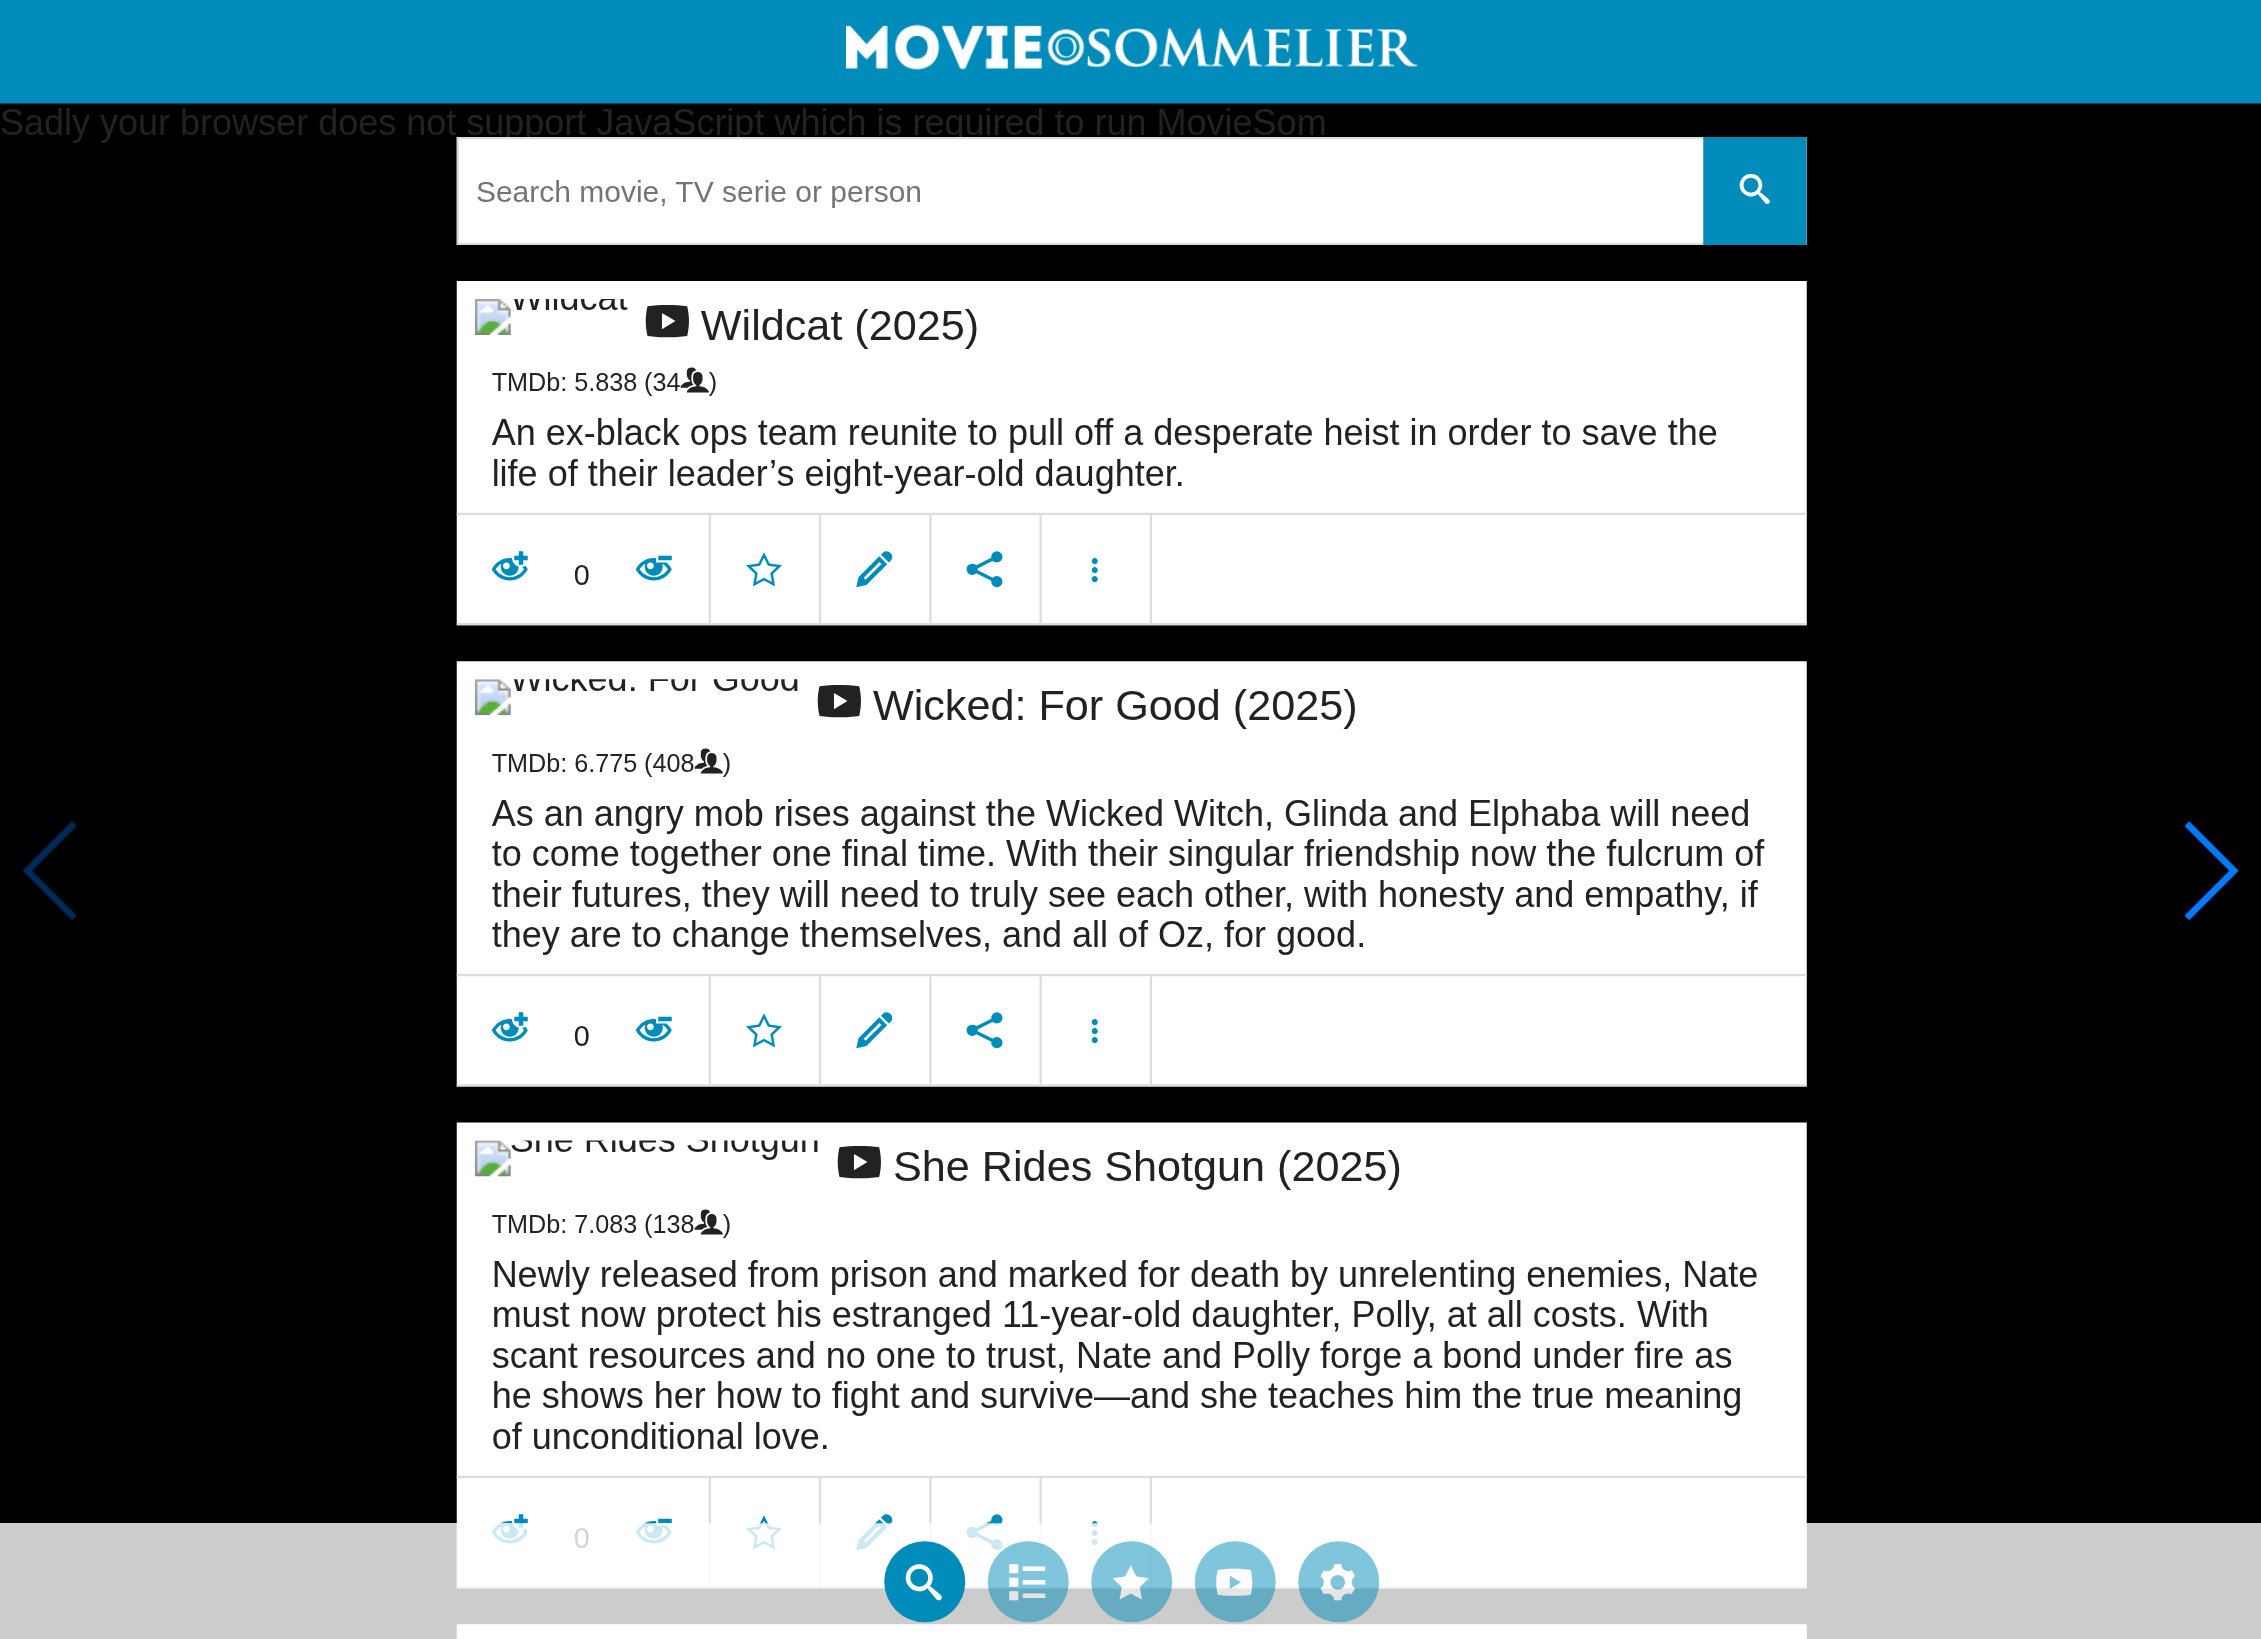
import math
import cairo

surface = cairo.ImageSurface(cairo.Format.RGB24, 2261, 1639)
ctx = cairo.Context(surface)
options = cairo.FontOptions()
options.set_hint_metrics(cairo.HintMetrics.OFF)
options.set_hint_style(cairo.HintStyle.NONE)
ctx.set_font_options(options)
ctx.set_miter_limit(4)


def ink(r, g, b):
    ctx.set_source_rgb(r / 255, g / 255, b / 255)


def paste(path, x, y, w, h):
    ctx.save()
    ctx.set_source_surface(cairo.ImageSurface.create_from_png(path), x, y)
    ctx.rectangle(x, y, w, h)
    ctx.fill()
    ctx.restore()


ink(255, 255, 255)
ctx.paint()
paste("pic1.png", 0, 0, 2261, 1639)
surface.write_to_png("screenshot.png")
